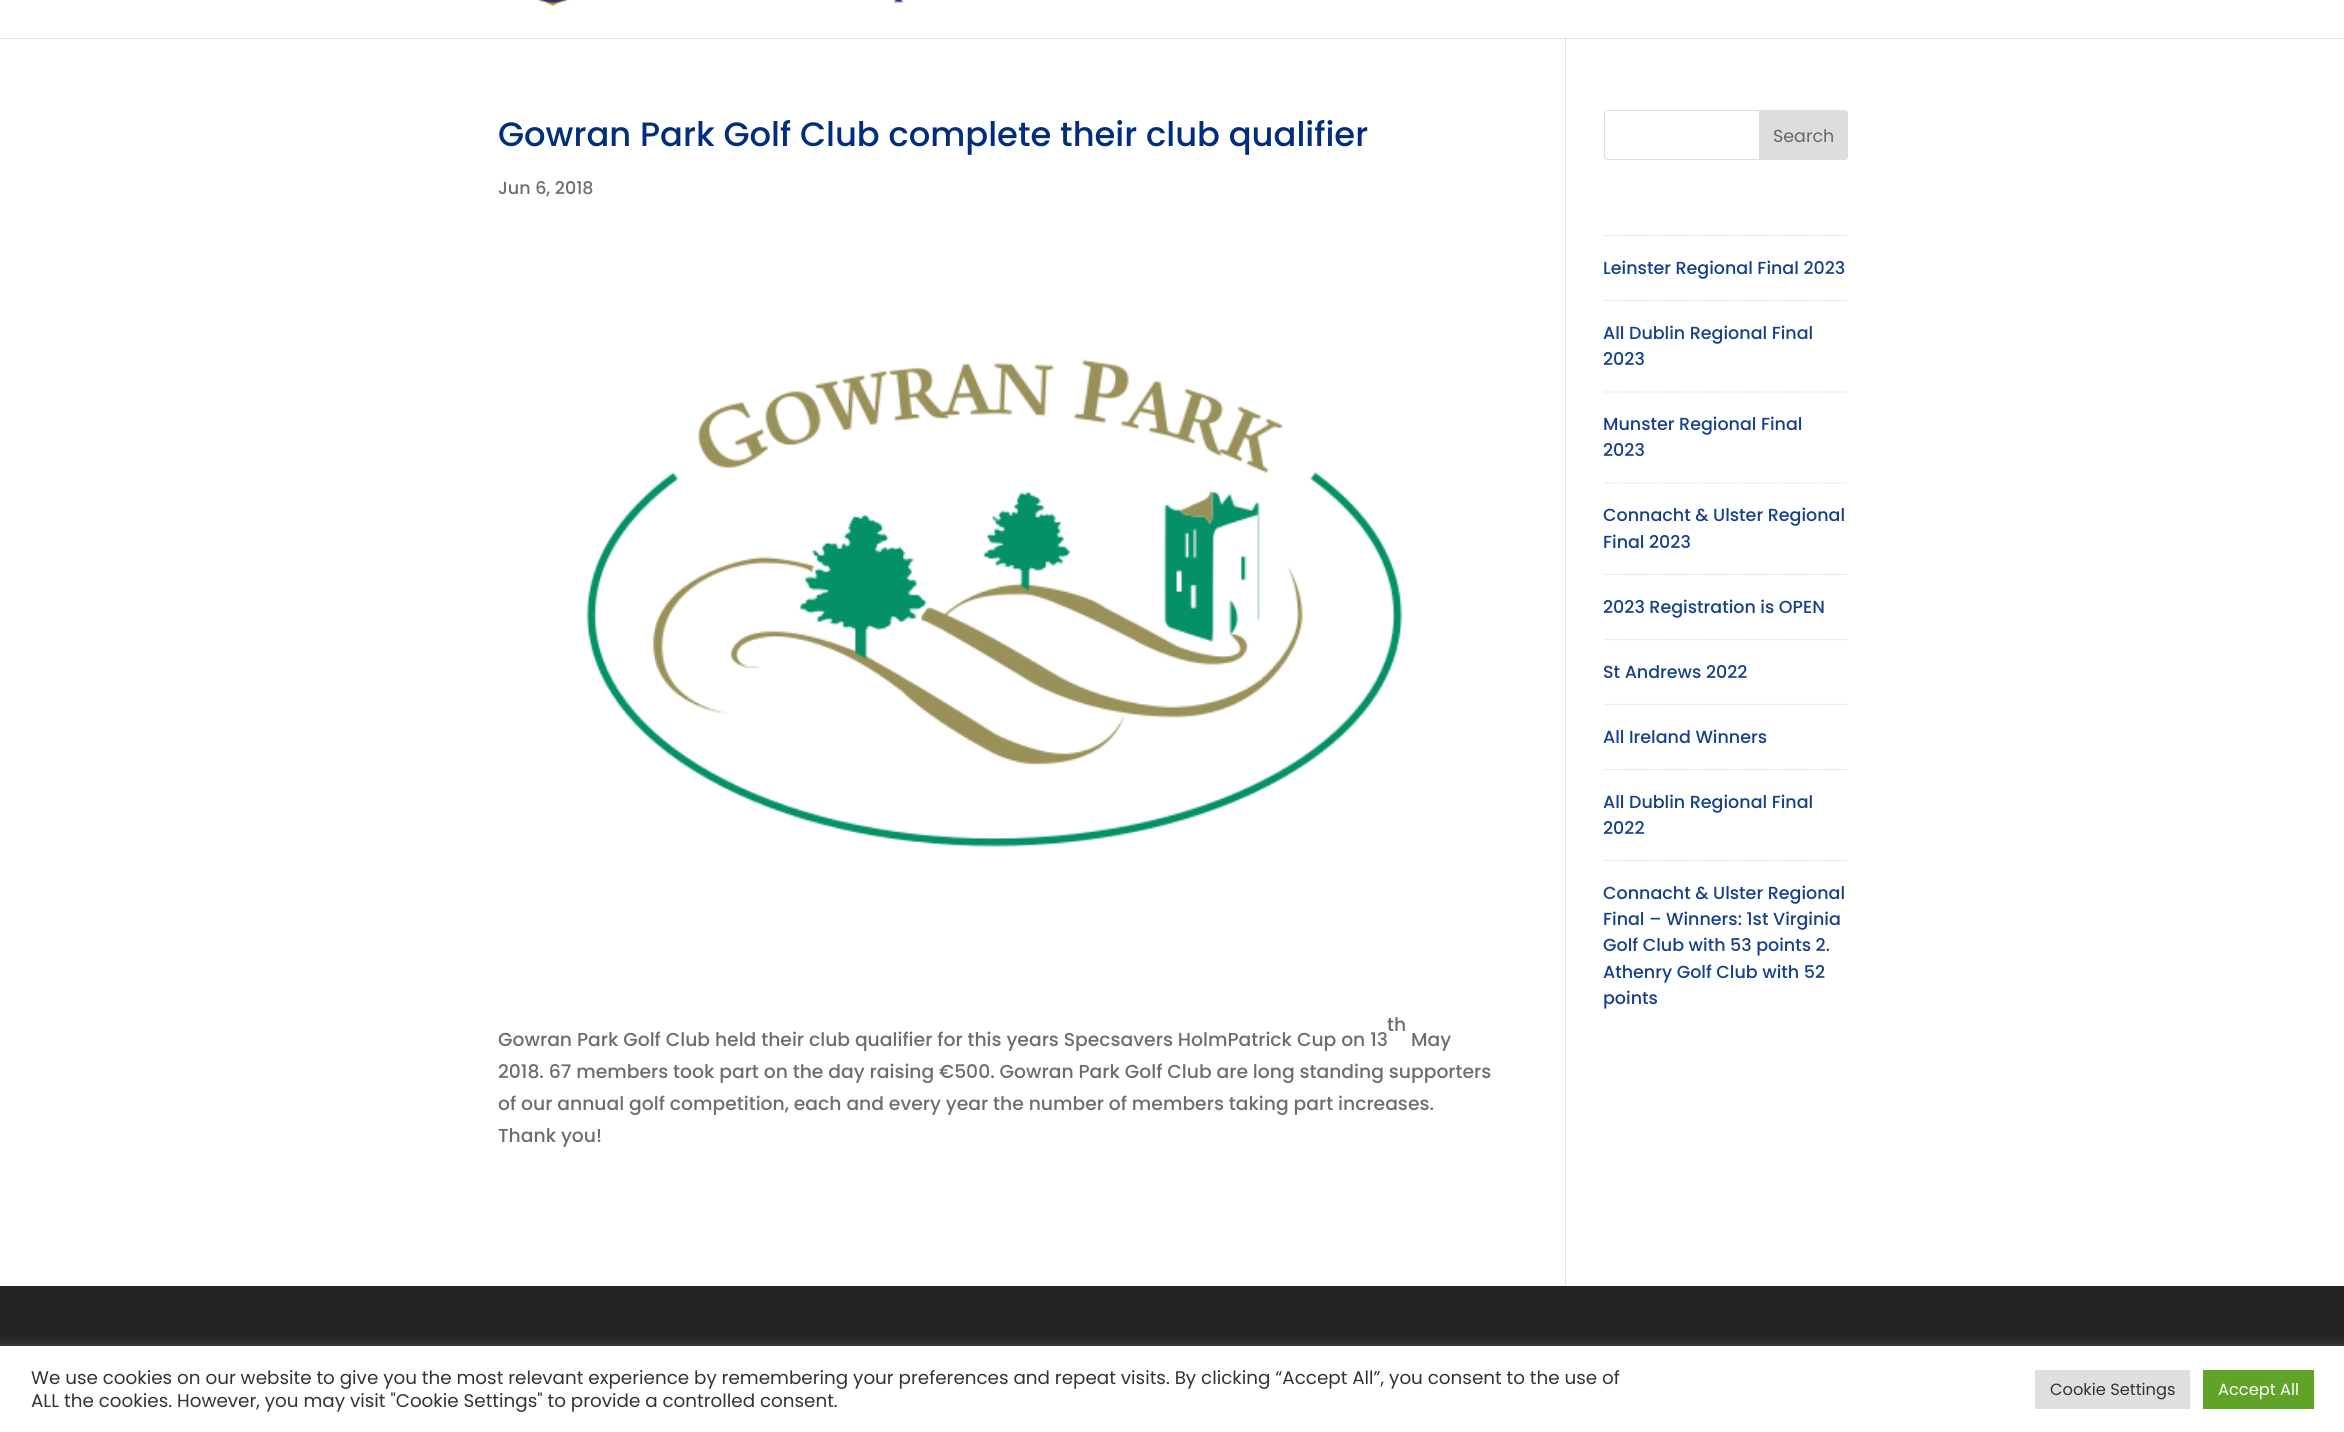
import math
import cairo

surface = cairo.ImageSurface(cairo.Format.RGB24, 2344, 1432)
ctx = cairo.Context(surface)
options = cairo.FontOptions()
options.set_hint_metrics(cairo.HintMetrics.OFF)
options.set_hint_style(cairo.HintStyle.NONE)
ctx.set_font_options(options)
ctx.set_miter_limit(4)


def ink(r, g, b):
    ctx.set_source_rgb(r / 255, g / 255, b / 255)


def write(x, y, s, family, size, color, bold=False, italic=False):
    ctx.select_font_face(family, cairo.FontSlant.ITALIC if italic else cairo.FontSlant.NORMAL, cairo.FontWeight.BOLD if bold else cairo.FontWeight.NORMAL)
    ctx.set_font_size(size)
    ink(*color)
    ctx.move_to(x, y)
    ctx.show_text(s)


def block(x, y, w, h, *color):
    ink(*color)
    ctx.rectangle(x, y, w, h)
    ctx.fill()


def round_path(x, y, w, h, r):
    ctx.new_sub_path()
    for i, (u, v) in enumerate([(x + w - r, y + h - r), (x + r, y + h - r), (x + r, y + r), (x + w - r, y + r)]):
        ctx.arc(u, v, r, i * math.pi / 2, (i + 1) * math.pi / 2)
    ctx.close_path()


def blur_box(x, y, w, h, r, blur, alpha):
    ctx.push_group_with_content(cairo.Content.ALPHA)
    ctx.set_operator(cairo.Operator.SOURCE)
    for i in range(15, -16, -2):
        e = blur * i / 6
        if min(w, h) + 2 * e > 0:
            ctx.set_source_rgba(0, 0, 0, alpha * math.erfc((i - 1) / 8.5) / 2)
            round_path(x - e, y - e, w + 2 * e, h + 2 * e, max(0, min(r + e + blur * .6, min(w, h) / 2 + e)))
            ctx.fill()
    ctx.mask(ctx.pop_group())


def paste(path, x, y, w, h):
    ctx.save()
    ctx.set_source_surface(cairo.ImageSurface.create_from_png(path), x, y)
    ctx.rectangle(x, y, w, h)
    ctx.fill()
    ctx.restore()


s1 = dict(family="Poppins Medium", size=33.75, color=(1, 46, 124))
s2 = dict(family="Poppins Medium", size=17.5, color=(109, 109, 109))
s3 = dict(family="Poppins Medium", size=18.75, color=(109, 109, 109))
s4 = dict(family="Poppins", size=17.5, color=(102, 102, 102))
s5 = dict(family="Poppins Medium", size=17.5, color=(22, 64, 142))
s6 = dict(family="Poppins", size=18.33, color=(51, 51, 51))
s7 = dict(family="Poppins", size=16.25, color=(51, 51, 51))
s8 = dict(family="Poppins", size=16.25, color=(255, 255, 255))

ink(255, 255, 255)
ctx.paint()
paste("pic1.png", 538, 0, 367, 7)
block(0, 38, 2344, 1, 230, 230, 230)
block(1565, 38, 1, 1248, 226, 226, 226)
block(1565, 38, 1, 1, 203, 203, 203)
write(498, 146, "Gowran Park Golf Club complete their club qualifier", **s1)
write(498, 194, "Jun 6, 2018", **s2)
paste("pic2.png", 586, 359, 817, 488)
write(1387, 1031, "th", **s3)
write(498, 1046, "Gowran Park Golf Club held their club qualifier for this years Specsavers HolmPatrick Cup on 13", **s3)
write(1411, 1046, "May", **s3)
write(498, 1078, "2018. 67 members took part on the day raising €500. Gowran Park Golf Club are long standing supporters", **s3)
write(498, 1110, "of our annual golf competition, each and every year the number of members taking part increases.", **s3)
write(498, 1142, "Thank you!", **s3)
round_path(1604.5, 110.5, 243, 49, 3.5)
ink(221, 221, 221)
ctx.set_line_width(1)
ctx.stroke()
ctx.new_path()
ctx.move_to(1759.5, 110.5)
ctx.line_to(1844, 110.5)
ctx.curve_to(1846, 110.5, 1847.5, 112, 1847.5, 114)
ctx.line_to(1847.5, 156)
ctx.curve_to(1847.5, 158, 1846, 159.5, 1844, 159.5)
ctx.line_to(1759.5, 159.5)
ctx.close_path()
ctx.fill_preserve()
ctx.stroke()
write(1773, 142, "Search", **s4)
ctx.new_path()
ctx.move_to(1604, 235.5)
ctx.line_to(1847.5, 235.5)
ink(221, 221, 221)
ctx.set_line_width(1.2)
ctx.set_dash([1.25, 1.25])
ctx.stroke()
ctx.new_path()
ctx.move_to(1604, 300.5)
ctx.line_to(1847.5, 300.5)
ctx.stroke()
write(1603, 274, "Leinster Regional Final 2023", **s5)
ctx.new_path()
ctx.move_to(1604, 392)
ctx.line_to(1847.5, 392)
ink(221, 221, 221)
ctx.stroke()
write(1603, 339, "All Dublin Regional Final", **s5)
write(1603, 365, "2023", **s5)
ctx.new_path()
ctx.move_to(1604, 483)
ctx.line_to(1847.5, 483)
ink(221, 221, 221)
ctx.stroke()
write(1603, 430, "Munster Regional Final", **s5)
write(1603, 456, "2023", **s5)
ctx.new_path()
ctx.move_to(1604, 574.5)
ctx.line_to(1847.5, 574.5)
ink(221, 221, 221)
ctx.stroke()
write(1603, 521, "Connacht & Ulster Regional", **s5)
write(1603, 548, "Final 2023", **s5)
ctx.new_path()
ctx.move_to(1604, 639.5)
ctx.line_to(1847.5, 639.5)
ink(221, 221, 221)
ctx.stroke()
write(1603, 613, "2023 Registration is OPEN", **s5)
ctx.new_path()
ctx.move_to(1604, 704.5)
ctx.line_to(1847.5, 704.5)
ink(221, 221, 221)
ctx.stroke()
write(1603, 678, "St Andrews 2022", **s5)
ctx.new_path()
ctx.move_to(1604, 769.5)
ctx.line_to(1847.5, 769.5)
ink(221, 221, 221)
ctx.stroke()
write(1603, 743, "All Ireland Winners", **s5)
ctx.new_path()
ctx.move_to(1604, 860.5)
ctx.line_to(1847.5, 860.5)
ink(221, 221, 221)
ctx.stroke()
write(1603, 808, "All Dublin Regional Final", **s5)
write(1603, 834, "2022", **s5)
write(1603, 899, "Connacht & Ulster Regional", **s5)
write(1603, 925, "Final – Winners: 1st Virginia", **s5)
write(1603, 951, "Golf Club with 53 points 2.", **s5)
write(1603, 978, "Athenry Golf Club with 52", **s5)
write(1603, 1004, "points", **s5)
block(0, 1286, 2344, 60, 35, 35, 35)
ink(172, 171, 171)
blur_box(0, 1345, 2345, 86, 0, 6, 0.3)
block(0, 1346, 2344, 86, 255, 255, 255)
write(31, 1384, "We use cookies on our website to give you the most relevant experience by remembering your preferences and repeat visits. By clicking “Accept All”, you consent to the use of", **s6)
write(31, 1407, "ALL the cookies. However, you may visit \"Cookie Settings\" to provide a controlled consent.", **s6)
block(2035, 1370, 155, 39, 222, 223, 224)
write(2050, 1395, "Cookie Settings", **s7)
block(2203, 1370, 111, 39, 97, 162, 41)
write(2218, 1395, "Accept All", **s8)
surface.write_to_png("screenshot.png")
